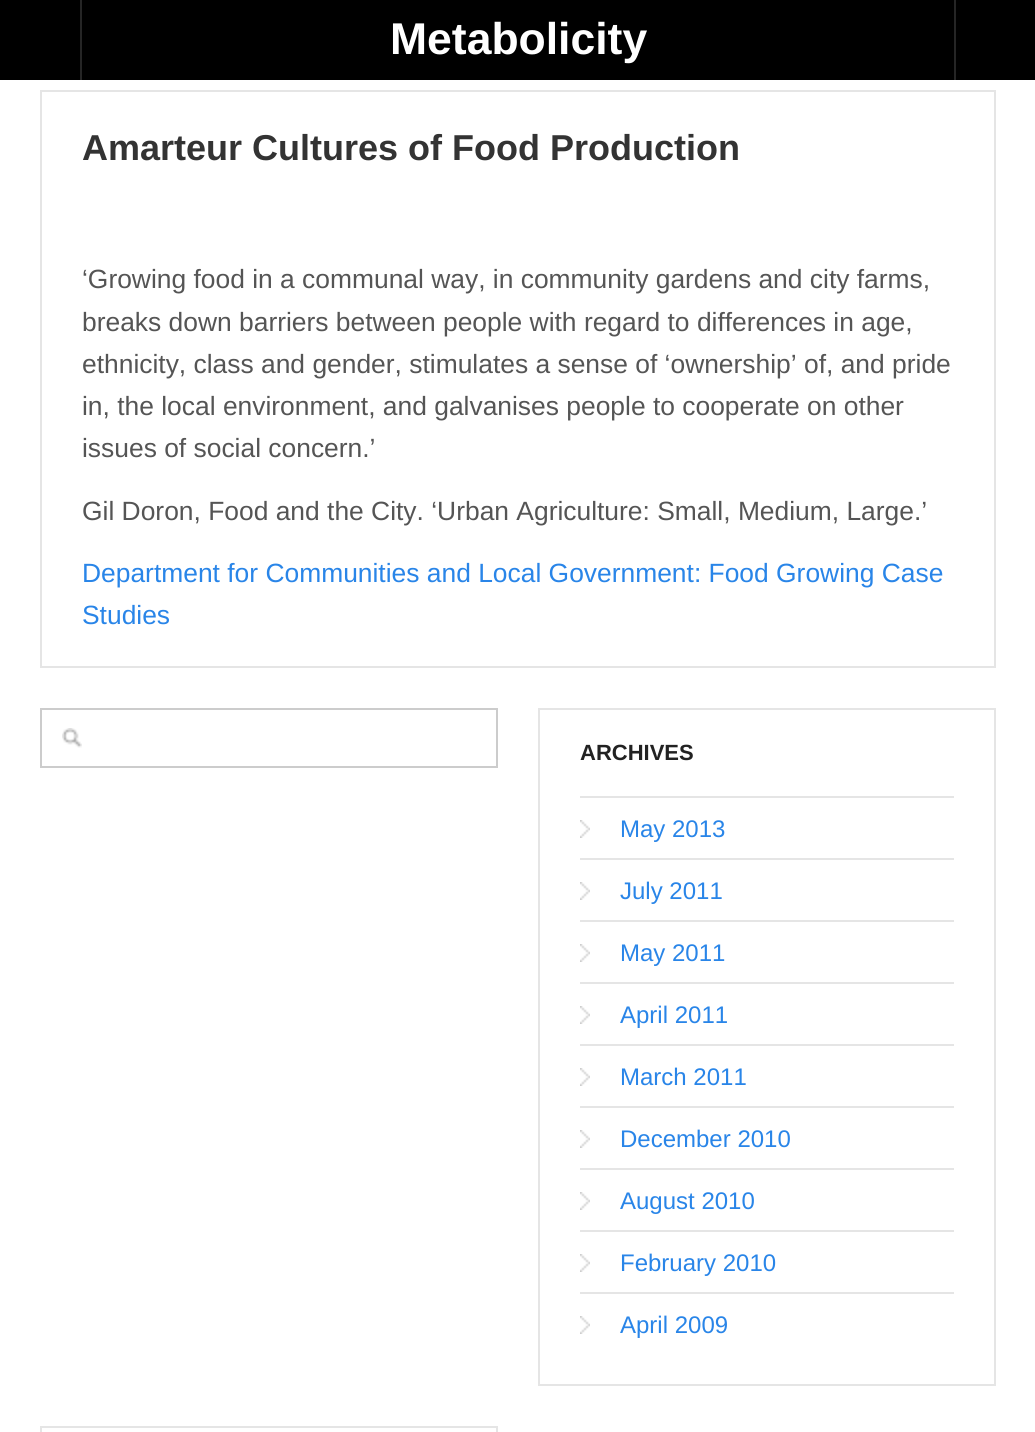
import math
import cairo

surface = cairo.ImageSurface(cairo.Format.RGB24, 1035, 1432)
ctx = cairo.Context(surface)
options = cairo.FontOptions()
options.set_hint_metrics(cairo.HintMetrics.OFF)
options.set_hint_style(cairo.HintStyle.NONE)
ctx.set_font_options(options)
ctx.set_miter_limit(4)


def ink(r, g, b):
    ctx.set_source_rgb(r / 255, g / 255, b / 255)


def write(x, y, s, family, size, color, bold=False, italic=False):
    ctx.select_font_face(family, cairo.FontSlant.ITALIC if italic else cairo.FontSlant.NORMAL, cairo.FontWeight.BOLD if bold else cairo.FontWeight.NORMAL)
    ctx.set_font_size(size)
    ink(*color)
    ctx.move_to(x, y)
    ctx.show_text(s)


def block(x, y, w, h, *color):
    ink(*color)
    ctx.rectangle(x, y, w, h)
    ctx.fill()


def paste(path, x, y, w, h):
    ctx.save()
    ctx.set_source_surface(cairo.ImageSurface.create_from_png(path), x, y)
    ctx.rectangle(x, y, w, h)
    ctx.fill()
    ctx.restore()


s1 = dict(family="Liberation Sans", size=44.5, color=(255, 255, 255), bold=True)
s2 = dict(family="Liberation Sans", size=36, color=(51, 51, 51), bold=True)
s3 = dict(family="Liberation Sans", size=26.4, color=(85, 85, 85))
s4 = dict(family="Liberation Sans", size=26.4, color=(41, 133, 232))
s5 = dict(family="Liberation Sans", size=22, color=(34, 34, 34), bold=True)
s6 = dict(family="Liberation Sans", size=24, color=(41, 133, 232))

ink(255, 255, 255)
ctx.paint()
block(0, 0, 1035, 80, 0, 0, 0)
block(80, 0, 2, 80, 37, 37, 37)
write(390, 54, "Metabolicity", **s1)
block(954, 0, 2, 80, 37, 37, 37)
ctx.rectangle(41, 91, 954, 576)
ink(229, 229, 229)
ctx.stroke()
write(82, 160, "Amarteur Cultures of Food Production", **s2)
write(82, 288, "‘Growing food in a communal way, in community gardens and city farms,", **s3)
write(82, 331, "breaks down barriers between people with regard to differences in age,", **s3)
write(82, 373, "ethnicity, class and gender, stimulates a sense of ‘ownership’ of, and pride", **s3)
write(82, 415, "in, the local environment, and galvanises people to cooperate on other", **s3)
write(82, 457, "issues of social concern.’", **s3)
write(82, 520, "Gil Doron, Food and the City. ‘Urban Agriculture: Small, Medium, Large.’", **s3)
write(82, 582, "Department for Communities and Local Government: Food Growing Case", **s4)
write(82, 624, "Studies", **s4)
paste("pic1.png", 62, 728, 20, 20)
ctx.rectangle(41, 709, 456, 58)
ink(204, 204, 204)
ctx.stroke()
ctx.rectangle(539, 709, 456, 676)
ink(229, 229, 229)
ctx.stroke()
block(580, 796, 374, 2, 229, 229, 229)
write(580, 760, "ARCHIVES", **s5)
paste("pic2.png", 580, 820, 10, 18)
write(620, 837, "May 2013", **s6)
block(580, 858, 374, 2, 229, 229, 229)
paste("pic2.png", 580, 882, 10, 18)
write(620, 899, "July 2011", **s6)
block(580, 920, 374, 2, 229, 229, 229)
paste("pic2.png", 580, 944, 10, 18)
write(620, 961, "May 2011", **s6)
block(580, 982, 374, 2, 229, 229, 229)
paste("pic2.png", 580, 1006, 10, 18)
write(620, 1023, "April 2011", **s6)
block(580, 1044, 374, 2, 229, 229, 229)
paste("pic2.png", 580, 1068, 10, 18)
write(620, 1085, "March 2011", **s6)
block(580, 1106, 374, 2, 229, 229, 229)
paste("pic2.png", 580, 1130, 10, 18)
write(620, 1147, "December 2010", **s6)
block(580, 1168, 374, 2, 229, 229, 229)
paste("pic2.png", 580, 1192, 10, 18)
write(620, 1209, "August 2010", **s6)
block(580, 1230, 374, 2, 229, 229, 229)
paste("pic2.png", 580, 1254, 10, 18)
write(620, 1271, "February 2010", **s6)
block(580, 1292, 374, 2, 229, 229, 229)
paste("pic2.png", 580, 1316, 10, 18)
write(620, 1333, "April 2009", **s6)
ctx.rectangle(41, 1427, 456, 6)
ink(229, 229, 229)
ctx.stroke()
surface.write_to_png("screenshot.png")
